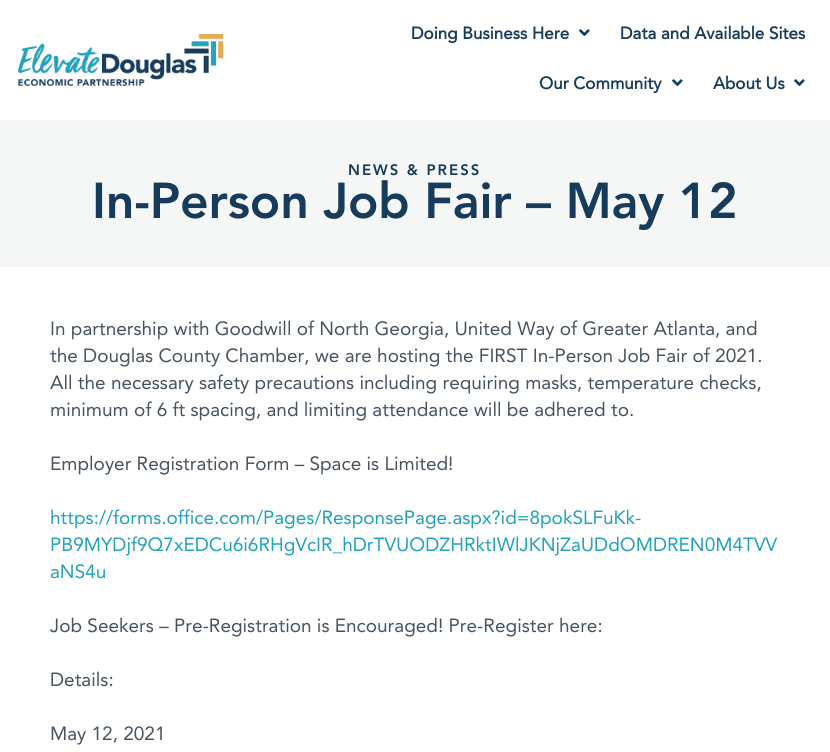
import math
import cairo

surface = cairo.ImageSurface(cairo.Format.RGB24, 830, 752)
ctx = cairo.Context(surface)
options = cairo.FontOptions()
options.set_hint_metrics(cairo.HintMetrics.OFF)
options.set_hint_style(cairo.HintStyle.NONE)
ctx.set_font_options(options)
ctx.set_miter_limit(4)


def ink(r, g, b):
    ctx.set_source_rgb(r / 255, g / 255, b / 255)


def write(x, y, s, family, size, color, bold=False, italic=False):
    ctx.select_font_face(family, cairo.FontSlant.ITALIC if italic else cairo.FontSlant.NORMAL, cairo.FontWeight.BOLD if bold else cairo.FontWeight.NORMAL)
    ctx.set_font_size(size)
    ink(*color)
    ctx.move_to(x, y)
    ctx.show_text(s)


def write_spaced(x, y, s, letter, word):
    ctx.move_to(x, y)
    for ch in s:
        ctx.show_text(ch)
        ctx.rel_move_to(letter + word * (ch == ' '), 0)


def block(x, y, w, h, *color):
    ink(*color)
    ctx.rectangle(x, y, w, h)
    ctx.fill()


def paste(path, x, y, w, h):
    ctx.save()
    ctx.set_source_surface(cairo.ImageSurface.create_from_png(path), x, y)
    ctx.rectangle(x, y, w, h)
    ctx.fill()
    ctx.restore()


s1 = dict(family="Avenir", size=17, color=(23, 59, 91), bold=True)
s2 = dict(family="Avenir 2", size=19, color=(70, 84, 97))
s3 = dict(family="Avenir 2", size=19, color=(34, 161, 191))

ink(255, 255, 255)
ctx.paint()
paste("pic1.png", 18, 34, 206, 52)
write(411, 39, "Doing Business Here", **s1)
paste("pic2.png", 579, 29, 11, 7)
write(620, 39, "Data and Available Sites", **s1)
write(539, 89, "Our Community", **s1)
paste("pic2.png", 672, 79, 11, 7)
write(713, 89, "About Us", **s1)
paste("pic2.png", 794, 79, 11, 7)
block(0, 120, 830, 147, 245, 247, 247)
ctx.select_font_face("Avenir")
ctx.set_font_size(15)
ink(23, 59, 91)
write_spaced(348, 175, "NEWS & PRESS", 2, 0)
ctx.set_font_size(50)
write_spaced(92, 218, "In-Person Job Fair – May 12", -0.2, 0)
write(50, 335, "In partnership with Goodwill of North Georgia, United Way of Greater Atlanta, and", **s2)
write(50, 362, "the Douglas County Chamber, we are hosting the FIRST In-Person Job Fair of 2021.", **s2)
write(50, 389, "All the necessary safety precautions including requiring masks, temperature checks,", **s2)
write(50, 416, "minimum of 6 ft spacing, and limiting attendance will be adhered to.", **s2)
write(50, 470, "Employer Registration Form – Space is Limited!", **s2)
write(50, 524, "https://forms.office.com/Pages/ResponsePage.aspx?id=8pokSLFuKk-", **s3)
write(50, 551, "PB9MYDjf9Q7xEDCu6i6RHgVcIR_hDrTVUODZHRktIWlJKNjZaUDdOMDREN0M4TVV", **s3)
write(50, 578, "aNS4u", **s3)
write(50, 632, "Job Seekers – Pre-Registration is Encouraged! Pre-Register here:", **s2)
write(50, 686, "Details:", **s2)
write(50, 740, "May 12, 2021", **s2)
surface.write_to_png("screenshot.png")
